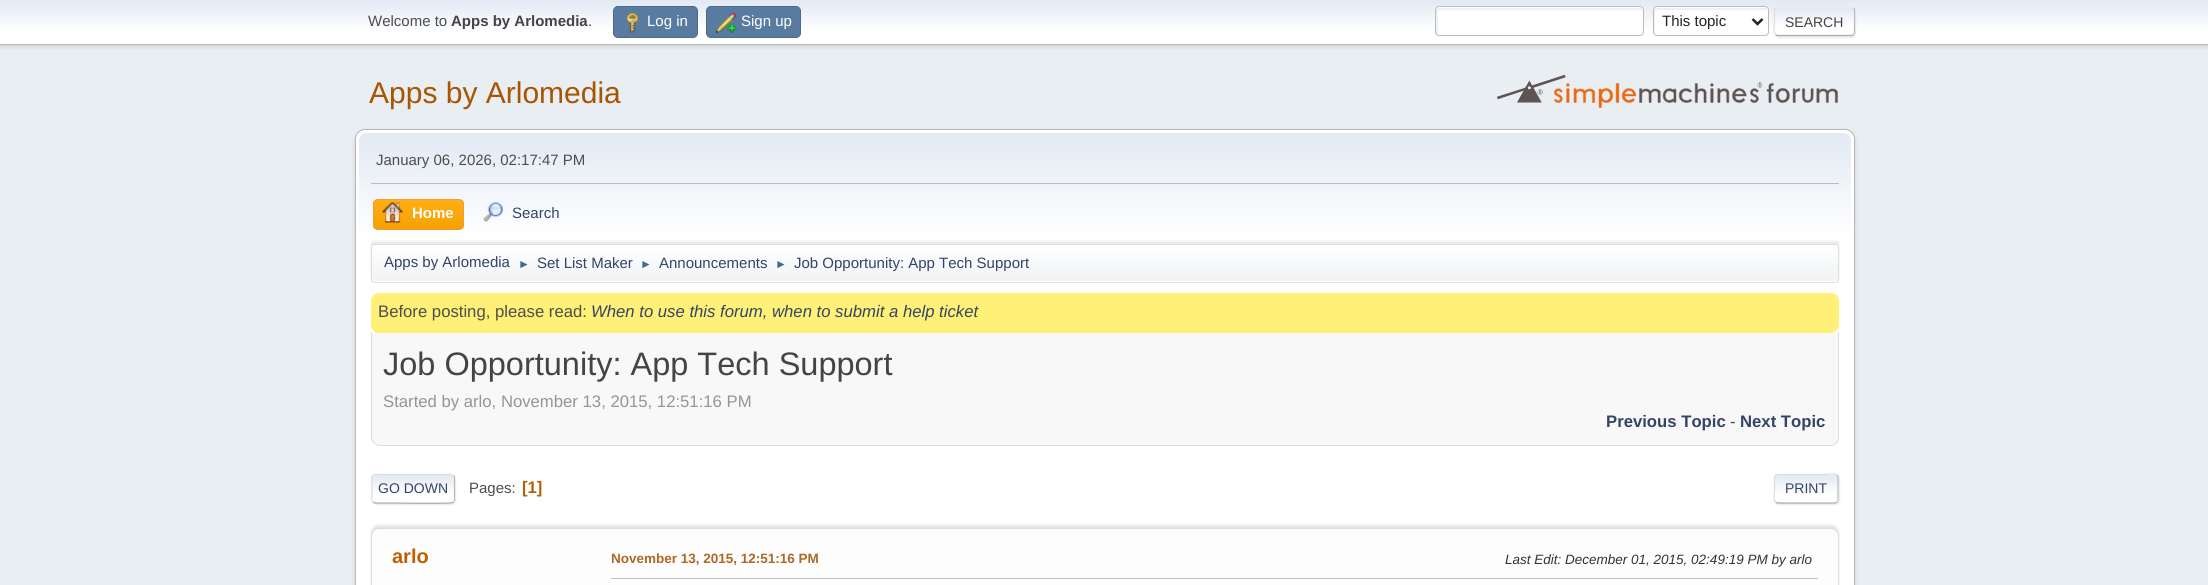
import math
import cairo

surface = cairo.ImageSurface(cairo.Format.RGB24, 2208, 585)
ctx = cairo.Context(surface)
options = cairo.FontOptions()
options.set_hint_metrics(cairo.HintMetrics.OFF)
options.set_hint_style(cairo.HintStyle.NONE)
ctx.set_font_options(options)
ctx.set_miter_limit(4)


def ink(r, g, b):
    ctx.set_source_rgb(r / 255, g / 255, b / 255)


def write(x, y, s, family, size, color, bold=False, italic=False):
    ctx.select_font_face(family, cairo.FontSlant.ITALIC if italic else cairo.FontSlant.NORMAL, cairo.FontWeight.BOLD if bold else cairo.FontWeight.NORMAL)
    ctx.set_font_size(size)
    ink(*color)
    ctx.move_to(x, y)
    ctx.show_text(s)


def block(x, y, w, h, *color):
    ink(*color)
    ctx.rectangle(x, y, w, h)
    ctx.fill()


def round_path(x, y, w, h, r):
    ctx.new_sub_path()
    for i, (u, v) in enumerate([(x + w - r, y + h - r), (x + r, y + h - r), (x + r, y + r), (x + w - r, y + r)]):
        ctx.arc(u, v, r, i * math.pi / 2, (i + 1) * math.pi / 2)
    ctx.close_path()


def blur_box(x, y, w, h, r, blur, alpha):
    ctx.push_group_with_content(cairo.Content.ALPHA)
    ctx.set_operator(cairo.Operator.SOURCE)
    for i in range(15, -16, -2):
        e = blur * i / 6
        if min(w, h) + 2 * e > 0:
            ctx.set_source_rgba(0, 0, 0, alpha * math.erfc((i - 1) / 8.5) / 2)
            round_path(x - e, y - e, w + 2 * e, h + 2 * e, max(0, min(r + e + blur * .6, min(w, h) / 2 + e)))
            ctx.fill()
    ctx.mask(ctx.pop_group())


def paste(path, x, y, w, h):
    ctx.save()
    ctx.set_source_surface(cairo.ImageSurface.create_from_png(path), x, y)
    ctx.rectangle(x, y, w, h)
    ctx.fill()
    ctx.restore()


s1 = dict(family="Liberation Sans", size=15, color=(77, 77, 77))
s2 = dict(family="Liberation Sans", size=15, color=(68, 68, 68), bold=True)
s3 = dict(family="Liberation Sans", size=15, color=(255, 255, 255))
s4 = dict(family="Liberation Sans", size=15, color=(34, 34, 34))
s5 = dict(family="Liberation Sans", size=14, color=(68, 68, 68))
s6 = dict(family="Liberation Sans", size=30, color=(168, 84, 0))
s7 = dict(family="Liberation Sans", size=15, color=(255, 255, 255), bold=True)
s8 = dict(family="Liberation Sans", size=15, color=(51, 68, 102))
s9 = dict(family="Liberation Sans", size=12, color=(63, 107, 140))
s10 = dict(family="Liberation Sans", size=16.7, color=(77, 77, 77))
s11 = dict(family="Liberation Sans", size=16.7, color=(51, 68, 102), italic=True)
s12 = dict(family="Liberation Sans", size=32.5, color=(68, 68, 68))
s13 = dict(family="Liberation Sans", size=16.7, color=(149, 149, 149))
s14 = dict(family="Liberation Sans", size=16.7, color=(51, 68, 102), bold=True)
s15 = dict(family="Liberation Sans", size=14, color=(51, 68, 102))
s16 = dict(family="Liberation Sans", size=16.7, color=(180, 97, 0), bold=True)
s17 = dict(family="Liberation Sans", size=20, color=(192, 96, 2), bold=True)
s18 = dict(family="Liberation Sans", size=13.5, color=(173, 104, 37), bold=True)
s19 = dict(family="Liberation Sans", size=13.5, color=(51, 51, 51), italic=True)

ink(233, 238, 242)
ctx.paint()
ink(0, 0, 0)
blur_box(0, 1, 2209, 45, 0, 2.5, 0.16)
gradient = cairo.LinearGradient(1104, 0, 1104, 44)
gradient.add_color_stop_rgba(0, 0.886, 0.914, 0.953, 1)
gradient.add_color_stop_rgba(0.7, 1, 1, 1, 1)
ctx.set_source(gradient)
ctx.rectangle(0, 0, 2208, 44)
ctx.fill()
block(0, 44, 2208, 1, 187, 187, 187)
write(368, 26, "Welcome to", **s1)
write(451, 26, "Apps by Arlomedia", **s2)
write(588, 26, ".", **s1)
ink(89, 123, 159)
round_path(613.5, 6.5, 84, 31, 4.5)
ctx.fill_preserve()
ink(74, 107, 140)
ctx.set_line_width(1)
ctx.stroke()
paste("pic1.png", 626, 12, 13, 21)
write(647, 26, "Log in", **s3)
ink(89, 123, 159)
round_path(706.5, 6.5, 94, 31, 4.5)
ctx.fill_preserve()
ink(74, 107, 140)
ctx.stroke()
paste("pic2.png", 716, 12, 21, 21)
write(741, 26, "Sign up", **s3)
round_path(1435, 6, 209, 30, 4)
ctx.fill()
ink(236, 241, 248)
ctx.new_path()
ctx.move_to(1440, 10)
ctx.line_to(1641, 10)
ctx.line_to(1643, 10)
ctx.curve_to(1643, 9, 1642, 8, 1640, 8)
ctx.line_to(1438, 8)
ctx.curve_to(1437, 8, 1436, 9, 1436, 10)
ctx.line_to(1436, 32)
ctx.curve_to(1436, 34, 1437, 35, 1438, 35)
ctx.line_to(1438, 12)
ctx.curve_to(1438, 11, 1439, 10, 1440, 10)
ctx.close_path()
ctx.fill()
round_path(1435.5, 6.5, 208, 29, 3.5)
ink(187, 187, 187)
ctx.stroke()
ink(255, 255, 255)
round_path(1653, 6, 116, 30, 4)
ctx.fill()
ink(236, 241, 248)
ctx.new_path()
ctx.move_to(1658, 10)
ctx.line_to(1766, 10)
ctx.line_to(1768, 10)
ctx.curve_to(1768, 9, 1767, 8, 1766, 8)
ctx.line_to(1656, 8)
ctx.curve_to(1655, 8, 1654, 9, 1654, 10)
ctx.line_to(1654, 32)
ctx.curve_to(1654, 33, 1654, 34, 1655, 35)
ctx.line_to(1655, 12)
ctx.curve_to(1655, 11, 1656, 10, 1658, 10)
ctx.close_path()
ctx.fill()
round_path(1653.5, 6.5, 115, 29, 3.5)
ink(187, 187, 187)
ctx.stroke()
ctx.new_path()
ctx.move_to(1752.5, 19)
ctx.line_to(1757.5, 24)
ctx.line_to(1762.5, 19)
ink(34, 34, 34)
ctx.set_line_width(2.5)
ctx.stroke()
write(1662, 26, "This topic", **s4)
ink(221, 221, 221)
blur_box(1775, 8, 81, 30, 4, 0.5, 0.57)
ctx.save()
round_path(1774, 6, 81, 30, 4)
ctx.clip()
gradient = cairo.LinearGradient(1814, -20, 1814, 7.5)
gradient.add_color_stop_rgba(0, 0.886, 0.914, 0.953, 1)
gradient.add_color_stop_rgba(0.7, 1, 1, 1, 1)
ctx.set_source(gradient)
ctx.rectangle(1774, 6, 81, 2)
ctx.fill()
gradient = cairo.LinearGradient(1814, 7.5, 1814, 35)
gradient.add_color_stop_rgba(0, 0.886, 0.914, 0.953, 1)
gradient.add_color_stop_rgba(0.7, 1, 1, 1, 1)
ctx.set_source(gradient)
ctx.rectangle(1774, 8, 81, 27)
ctx.fill()
ctx.restore()
ctx.new_path()
ctx.move_to(1853.5, 8)
ctx.curve_to(1854, 8.5, 1854.5, 9, 1854.5, 10)
ctx.line_to(1854.5, 32.5)
ctx.curve_to(1854.5, 33.5, 1854, 34, 1853.5, 34.5)
ink(187, 187, 187)
ctx.set_line_width(1.2)
ctx.stroke()
ctx.new_path()
ctx.move_to(1853.5, 34.5)
ctx.line_to(1851.5, 35.5)
ctx.line_to(1777, 35.5)
ctx.line_to(1775.5, 34.5)
ink(170, 170, 170)
ctx.stroke()
ctx.new_path()
ctx.move_to(1775.5, 34.5)
ctx.curve_to(1773, 32.5, 1774.5, 24, 1774.5, 21)
ctx.curve_to(1774.5, 4, 1772, 7, 1790, 7)
ctx.line_to(1851, 7)
ctx.line_to(1853.5, 8)
ink(221, 221, 221)
ctx.stroke()
write(1785, 27, "SEARCH", **s5)
write(369, 103, "Apps by Arlomedia", **s6)
paste("pic3.png", 1497, 74, 341, 34)
ink(0, 0, 0)
blur_box(355, 131, 1500, 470, 10, 2, 0.14)
ink(255, 255, 255)
round_path(355.5, 129.5, 1499, 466, 9.5)
ctx.fill_preserve()
ink(184, 184, 184)
ctx.set_line_width(1)
ctx.stroke()
gradient = cairo.LinearGradient(1105, 132, 1105, 285)
gradient.add_color_stop_rgba(0, 0.886, 0.914, 0.953, 1)
gradient.add_color_stop_rgba(0.7, 1, 1, 1, 1)
ctx.set_source(gradient)
ctx.new_path()
ctx.move_to(367, 133)
ctx.line_to(1843, 133)
ctx.curve_to(1847.5, 133, 1851, 136.5, 1851, 141)
ctx.line_to(1851, 285)
ctx.line_to(359, 285)
ctx.line_to(359, 141)
ctx.curve_to(359, 136.5, 362.5, 133, 367, 133)
ctx.close_path()
ctx.fill()
block(371, 183, 1468, 1, 187, 187, 187)
write(376, 165, "January 06, 2026, 02:17:47 PM", **s1)
ctx.save()
round_path(373, 199, 91, 31, 5)
ctx.clip()
gradient = cairo.LinearGradient(418, 200, 418, 229)
gradient.add_color_stop_rgba(0, 1, 0.682, 0.078, 1)
gradient.add_color_stop_rgba(1, 0.961, 0.631, 0, 1)
ctx.set_source(gradient)
ctx.rectangle(373, 200, 91, 29)
ctx.fill()
ctx.restore()
round_path(373.5, 199.5, 90, 30, 4.5)
ink(244, 154, 58)
ctx.stroke()
paste("pic4.png", 382, 202, 21, 21)
write(412, 218, "Home", **s7)
paste("pic5.png", 483, 202, 20, 20)
write(512, 218, "Search", **s8)
ink(0, 0, 0)
blur_box(371, 241, 1468, 39, 2.5, 1, 0.08)
ink(255, 255, 255)
round_path(371, 244, 1468, 39, 2.5)
ctx.fill()
gradient = cairo.LinearGradient(1105, 245, 1105, 281)
gradient.add_color_stop_rgba(0, 1, 1, 1, 1)
gradient.add_color_stop_rgba(0.95, 0.945, 0.953, 0.961, 1)
ctx.set_source(gradient)
ctx.rectangle(371, 245, 1468, 36)
ctx.fill()
round_path(371.5, 244.5, 1467, 38, 2)
ink(221, 221, 221)
ctx.stroke()
write(384, 267, "Apps by Arlomedia", **s8)
write(518, 268, "►", **s9)
write(537, 268, "Set List Maker", **s8)
write(640, 268, "►", **s9)
write(659, 268, "Announcements", **s8)
write(775, 268, "►", **s9)
write(794, 268, "Job Opportunity: App Tech Support", **s8)
ink(255, 241, 119)
round_path(371, 293, 1468, 40, 8)
ctx.fill()
write(378, 317, "Before posting, please read:", **s10)
write(591, 317, "When to use this forum, when to submit a help ticket", **s11)
ink(248, 248, 248)
ctx.new_path()
ctx.move_to(371, 333)
ctx.line_to(1839, 333)
ctx.line_to(1839, 437)
ctx.curve_to(1839, 442, 1835, 446, 1830, 446)
ctx.line_to(380, 446)
ctx.curve_to(375, 446, 371, 442, 371, 437)
ctx.close_path()
ctx.fill()
ink(221, 221, 221)
ctx.set_fill_rule(cairo.FillRule.EVEN_ODD)
ctx.new_path()
ctx.move_to(371, 332)
ctx.line_to(1839, 332)
ctx.line_to(1839, 438)
ctx.curve_to(1839, 442, 1835, 446, 1830, 446)
ctx.line_to(380, 446)
ctx.curve_to(375, 446, 371, 442, 371, 438)
ctx.close_path()
ctx.move_to(372, 332)
ctx.line_to(1838, 332)
ctx.line_to(1838, 438)
ctx.curve_to(1838, 442, 1834, 445, 1830, 445)
ctx.line_to(380, 445)
ctx.curve_to(376, 445, 372, 442, 372, 438)
ctx.close_path()
ctx.fill()
write(383, 375, "Job Opportunity: App Tech Support", **s12)
write(383, 407, "Started by arlo, November 13, 2015, 12:51:16 PM", **s13)
write(1606, 427, "Previous Topic", **s14)
write(1730, 427, "-", **s10)
write(1740, 427, "Next Topic", **s14)
ink(221, 221, 221)
blur_box(373, 475, 83, 30, 4, 0.5, 0.57)
ink(255, 255, 255)
round_path(371, 474, 84, 30, 4)
ctx.fill()
ctx.save()
ctx.set_fill_rule(cairo.FillRule.WINDING)
round_path(371, 474, 84, 30, 4)
ctx.clip()
gradient = cairo.LinearGradient(413, 475, 413, 503)
gradient.add_color_stop_rgba(0, 0.886, 0.914, 0.953, 1)
gradient.add_color_stop_rgba(0.7, 1, 1, 1, 1)
ctx.set_source(gradient)
ctx.rectangle(371, 475, 84, 28)
ctx.fill()
gradient = cairo.LinearGradient(413, 503, 413, 530)
gradient.add_color_stop_rgba(0, 0.886, 0.914, 0.953, 1)
gradient.add_color_stop_rgba(0.7, 1, 1, 1, 1)
ctx.set_source(gradient)
ctx.rectangle(371, 503, 84, 1)
ctx.fill()
ctx.restore()
ctx.new_path()
ctx.move_to(453.5, 475.5)
ctx.curve_to(454, 476, 454.5, 476.5, 454.5, 477.5)
ctx.line_to(454.5, 500)
ctx.curve_to(454.5, 501, 454, 501.5, 453.5, 502)
ink(187, 187, 187)
ctx.set_line_width(1.2)
ctx.stroke()
ctx.new_path()
ctx.move_to(453.5, 502)
ctx.line_to(453, 502.5)
ctx.curve_to(451, 504, 395, 503, 387.5, 503)
ctx.line_to(375, 503)
ctx.line_to(373, 502)
ink(170, 170, 170)
ctx.stroke()
ctx.new_path()
ctx.move_to(373, 502)
ctx.curve_to(370.5, 500, 372, 495, 372, 492.5)
ctx.curve_to(372, 472, 367.5, 474.5, 387.5, 474.5)
ctx.line_to(451, 474.5)
ctx.line_to(453.5, 475.5)
ink(221, 221, 221)
ctx.stroke()
write(378, 493, "GO DOWN", **s15)
write(469, 493, "Pages:", **s1)
write(522, 493, "[1]", **s16)
ink(221, 221, 221)
blur_box(1775, 475, 65, 30, 4, 0.5, 0.57)
ink(255, 255, 255)
round_path(1774, 474, 65, 30, 4)
ctx.fill()
ctx.save()
ctx.set_fill_rule(cairo.FillRule.WINDING)
round_path(1774, 474, 65, 30, 4)
ctx.clip()
gradient = cairo.LinearGradient(1806, 475, 1806, 503)
gradient.add_color_stop_rgba(0, 0.886, 0.914, 0.953, 1)
gradient.add_color_stop_rgba(0.7, 1, 1, 1, 1)
ctx.set_source(gradient)
ctx.rectangle(1774, 475, 65, 28)
ctx.fill()
gradient = cairo.LinearGradient(1806, 503, 1806, 530)
gradient.add_color_stop_rgba(0, 0.886, 0.914, 0.953, 1)
gradient.add_color_stop_rgba(0.7, 1, 1, 1, 1)
ctx.set_source(gradient)
ctx.rectangle(1774, 503, 65, 1)
ctx.fill()
ctx.restore()
ctx.new_path()
ctx.move_to(1837, 475.5)
ctx.curve_to(1838, 476, 1838, 476.5, 1838, 477.5)
ctx.line_to(1838, 500)
ctx.curve_to(1838, 501, 1838, 501.5, 1837, 502)
ink(187, 187, 187)
ctx.stroke()
ctx.new_path()
ctx.move_to(1837, 502)
ctx.line_to(1835.5, 503)
ctx.line_to(1777, 503)
ctx.line_to(1775.5, 502)
ink(170, 170, 170)
ctx.stroke()
ctx.new_path()
ctx.move_to(1775.5, 502)
ctx.curve_to(1773, 500, 1774.5, 491.5, 1774.5, 489)
ctx.curve_to(1774.5, 473, 1771.5, 474.5, 1787, 474.5)
ctx.line_to(1825.5, 474.5)
ctx.curve_to(1829.5, 474.5, 1834, 472.5, 1837, 475)
ctx.line_to(1837, 475.5)
ink(221, 221, 221)
ctx.stroke()
write(1785, 493, "PRINT", **s15)
ink(0, 0, 0)
blur_box(371, 525, 1468, 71, 8, 1, 0.1)
ink(253, 253, 253)
round_path(371.5, 528.5, 1467, 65, 7.5)
ctx.fill_preserve()
ink(221, 221, 221)
ctx.set_line_width(1)
ctx.stroke()
write(392, 563, "arlo", **s17)
write(611, 563, "November 13, 2015, 12:51:16 PM", **s18)
write(1505, 564, "Last Edit: December 01, 2015, 02:49:19 PM by arlo", **s19)
block(611, 578, 1207, 1, 191, 191, 191)
surface.write_to_png("screenshot.png")
